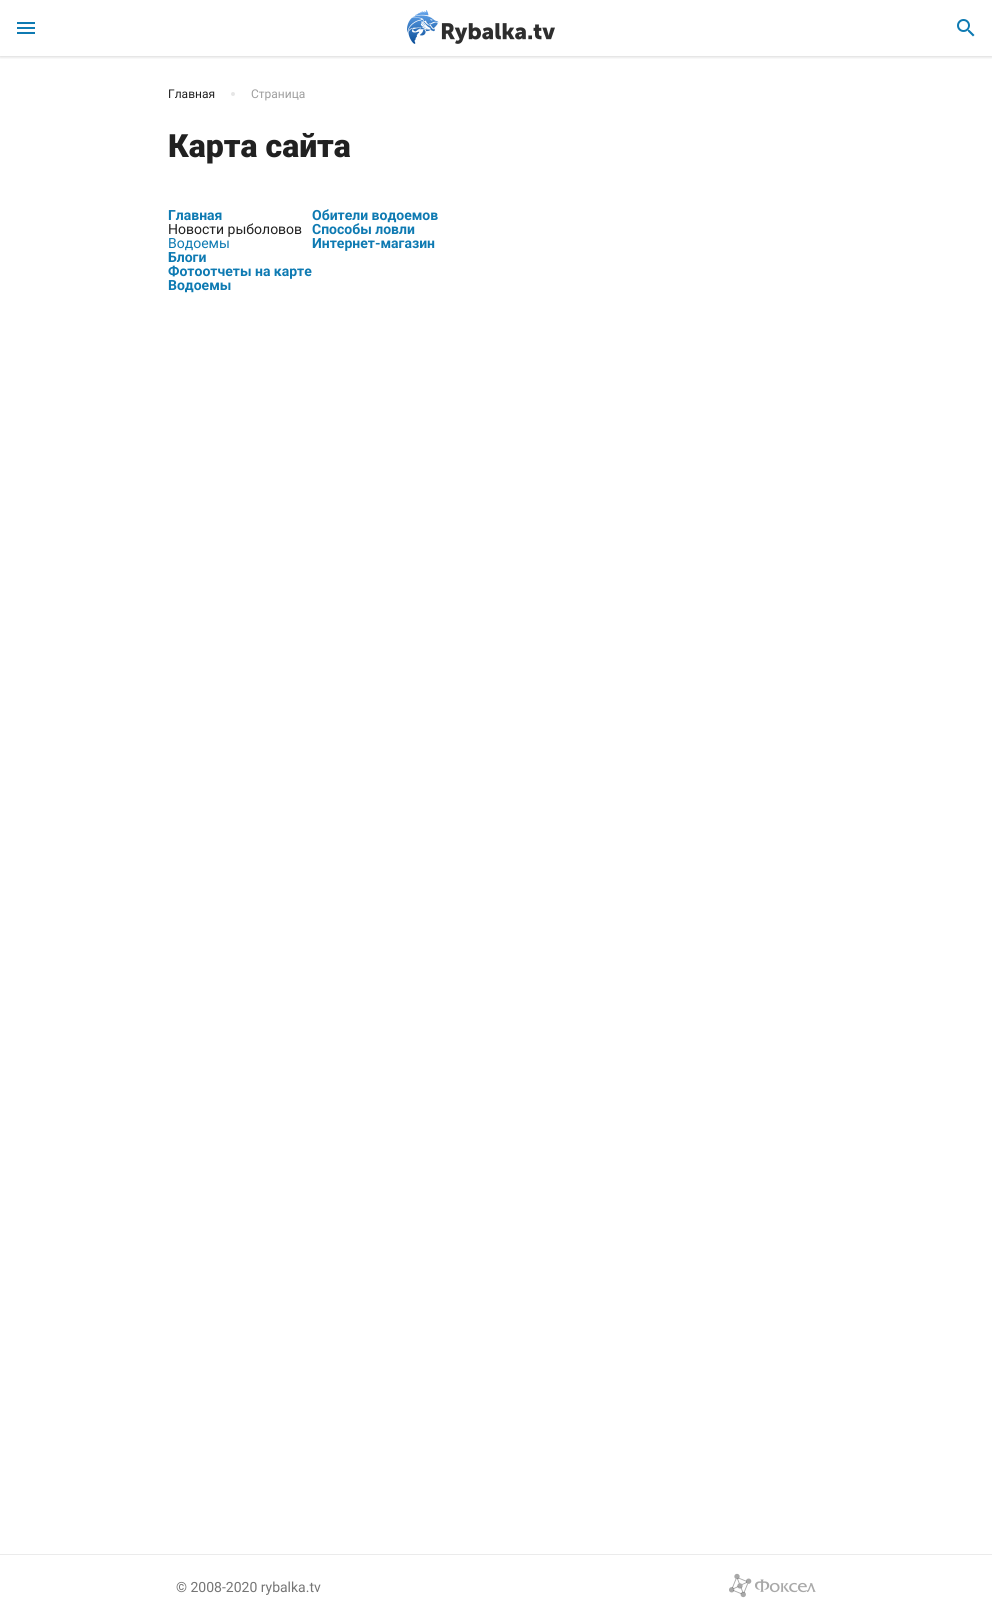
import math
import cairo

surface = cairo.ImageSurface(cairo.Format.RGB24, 992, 1617)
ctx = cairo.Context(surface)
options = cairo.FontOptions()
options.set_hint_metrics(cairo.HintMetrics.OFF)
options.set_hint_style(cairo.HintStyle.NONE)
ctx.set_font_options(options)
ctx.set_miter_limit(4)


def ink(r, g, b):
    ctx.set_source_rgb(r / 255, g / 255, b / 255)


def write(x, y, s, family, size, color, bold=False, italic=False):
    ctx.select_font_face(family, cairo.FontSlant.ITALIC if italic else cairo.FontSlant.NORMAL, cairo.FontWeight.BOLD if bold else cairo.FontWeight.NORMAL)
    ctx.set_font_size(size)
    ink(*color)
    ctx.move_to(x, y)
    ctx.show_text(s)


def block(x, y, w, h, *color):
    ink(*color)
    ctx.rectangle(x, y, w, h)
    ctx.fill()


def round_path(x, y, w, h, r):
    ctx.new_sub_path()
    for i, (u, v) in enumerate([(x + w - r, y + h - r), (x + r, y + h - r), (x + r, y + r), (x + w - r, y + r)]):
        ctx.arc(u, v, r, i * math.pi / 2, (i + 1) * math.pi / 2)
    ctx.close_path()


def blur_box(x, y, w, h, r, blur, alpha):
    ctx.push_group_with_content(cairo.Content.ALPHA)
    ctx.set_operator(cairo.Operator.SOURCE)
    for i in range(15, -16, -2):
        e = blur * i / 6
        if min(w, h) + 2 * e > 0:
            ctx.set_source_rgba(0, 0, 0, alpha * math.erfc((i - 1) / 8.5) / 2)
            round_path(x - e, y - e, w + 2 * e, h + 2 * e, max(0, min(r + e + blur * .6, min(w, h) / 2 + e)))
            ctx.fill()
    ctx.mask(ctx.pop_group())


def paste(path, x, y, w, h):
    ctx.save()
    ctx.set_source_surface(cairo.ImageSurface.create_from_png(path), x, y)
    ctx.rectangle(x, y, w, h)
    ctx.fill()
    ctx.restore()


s1 = dict(family="Roboto", size=12, color=(33, 33, 33))
s2 = dict(family="Roboto", size=12, color=(158, 158, 158))
s3 = dict(family="Roboto Black", size=32, color=(33, 33, 33))
s4 = dict(family="Roboto", size=14, color=(14, 122, 178), bold=True)
s5 = dict(family="Roboto", size=14, color=(33, 33, 33))
s6 = dict(family="Roboto", size=14, color=(14, 122, 178))
s7 = dict(family="Roboto", size=14, color=(117, 117, 117))

ink(255, 255, 255)
ctx.paint()
ctx.save()
ctx.rectangle(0, 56, 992, 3)
ctx.clip()
ink(0, 0, 0)
blur_box(0, 1, 992, 56, 0, 1.5, 0.16)
ctx.restore()
paste("pic1.png", 17, 22, 18, 12)
paste("pic2.png", 407, 10, 148, 34)
paste("pic3.png", 957, 19, 18, 18)
write(168, 98, "Главная", **s1)
ink(230, 230, 230)
ctx.new_path()
ctx.arc(233, 94, 2, 0, 2 * math.pi)
ctx.fill()
write(251, 98, "Страница", **s2)
write(168, 157, "Карта сайта", **s3)
write(168, 220, "Главная", **s4)
write(168, 234, "Новости рыболовов", **s5)
write(168, 248, "Водоемы", **s6)
write(168, 262, "Блоги", **s4)
write(168, 276, "Фотоотчеты на карте", **s4)
write(168, 290, "Водоемы", **s4)
write(312, 220, "Обители водоемов", **s4)
write(312, 234, "Способы ловли", **s4)
write(312, 248, "Интернет-магазин", **s4)
block(0, 1554, 992, 1, 235, 235, 235)
write(176, 1592, "© 2008-2020 rybalka.tv", **s7)
paste("pic4.png", 729, 1573, 87, 25)
surface.write_to_png("screenshot.png")
